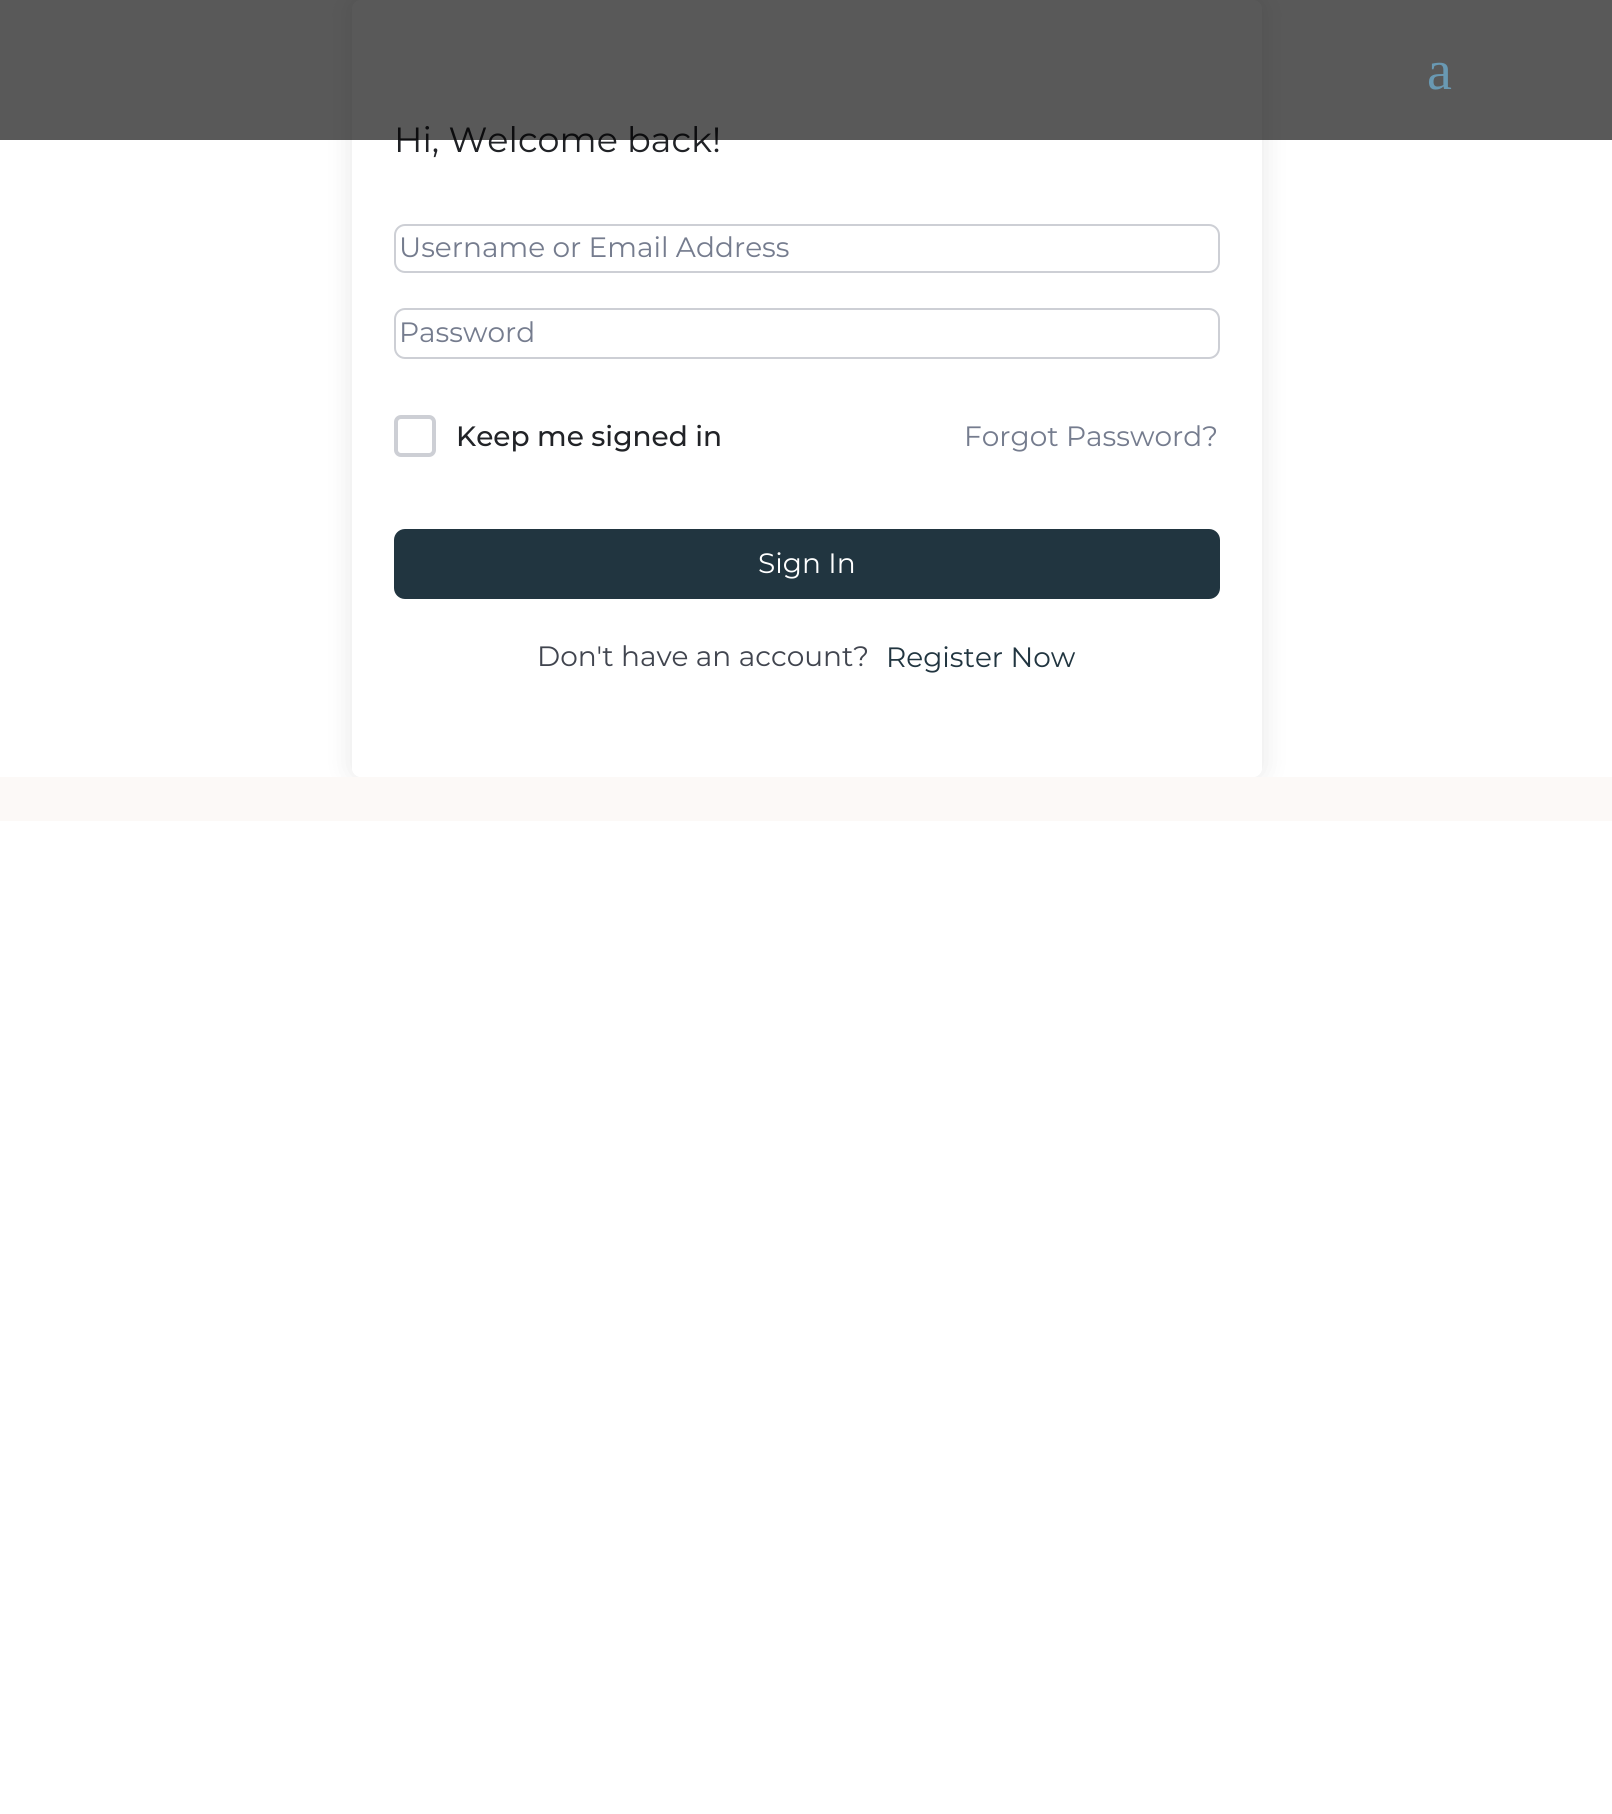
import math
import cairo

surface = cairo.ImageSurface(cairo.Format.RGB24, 1612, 1814)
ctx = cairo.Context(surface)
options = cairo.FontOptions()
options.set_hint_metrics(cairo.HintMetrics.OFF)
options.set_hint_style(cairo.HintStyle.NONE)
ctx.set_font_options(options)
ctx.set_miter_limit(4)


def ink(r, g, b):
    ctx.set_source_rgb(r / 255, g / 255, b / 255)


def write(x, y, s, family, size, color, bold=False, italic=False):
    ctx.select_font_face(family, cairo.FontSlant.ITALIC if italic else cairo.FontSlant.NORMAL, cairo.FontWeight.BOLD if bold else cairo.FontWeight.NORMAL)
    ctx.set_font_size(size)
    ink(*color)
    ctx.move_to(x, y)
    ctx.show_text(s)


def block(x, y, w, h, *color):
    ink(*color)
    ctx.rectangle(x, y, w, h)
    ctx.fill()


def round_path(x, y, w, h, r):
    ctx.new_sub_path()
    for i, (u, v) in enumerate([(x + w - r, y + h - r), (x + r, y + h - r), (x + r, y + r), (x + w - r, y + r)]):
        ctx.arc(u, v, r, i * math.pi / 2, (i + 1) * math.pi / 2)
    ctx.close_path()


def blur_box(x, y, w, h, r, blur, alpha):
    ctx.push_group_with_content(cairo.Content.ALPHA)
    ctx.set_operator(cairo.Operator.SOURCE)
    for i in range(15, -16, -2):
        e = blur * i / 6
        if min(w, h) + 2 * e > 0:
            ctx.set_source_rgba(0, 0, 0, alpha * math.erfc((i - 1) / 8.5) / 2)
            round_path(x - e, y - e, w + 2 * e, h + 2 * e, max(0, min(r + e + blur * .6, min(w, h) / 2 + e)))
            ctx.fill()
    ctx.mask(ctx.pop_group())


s1 = dict(family="Montserrat", size=35, color=(33, 35, 39))
s2 = dict(family="Liberation Serif", size=56, color=(105, 153, 179))
s3 = dict(family="Montserrat", size=28, color=(117, 124, 142))
s4 = dict(family="Montserrat Medium", size=28, color=(33, 35, 39))
s5 = dict(family="Montserrat", size=28, color=(255, 255, 255))
s6 = dict(family="Montserrat", size=28, color=(65, 69, 79))
s7 = dict(family="Montserrat", size=28, color=(33, 53, 64))

ink(255, 255, 255)
ctx.paint()
ctx.save()
ctx.set_fill_rule(cairo.FillRule.EVEN_ODD)
ctx.new_path()
ctx.move_to(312, 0)
ctx.line_to(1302, 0)
ctx.line_to(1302, 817)
ctx.line_to(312, 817)
ctx.close_path()
ctx.move_to(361, 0)
ctx.line_to(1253, 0)
ctx.curve_to(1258, 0, 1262, 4, 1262, 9)
ctx.line_to(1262, 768)
ctx.curve_to(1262, 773, 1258, 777, 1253, 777)
ctx.line_to(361, 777)
ctx.curve_to(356, 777, 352, 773, 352, 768)
ctx.line_to(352, 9)
ctx.curve_to(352, 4, 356, 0, 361, 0)
ctx.close_path()
ctx.clip()
ink(0, 0, 0)
blur_box(352, 0, 910, 777, 9, 13, 0.1)
ctx.restore()
write(394, 152, "Hi, Welcome back!", **s1)
ctx.set_source_rgba(0, 0, 0, 0.65)
ctx.rectangle(0, 0, 1612, 140)
ctx.fill()
write(1427, 89, "a", **s2)
round_path(395, 225, 824, 47, 10)
ink(205, 207, 213)
ctx.stroke()
write(399, 257, "Username or Email Address", **s3)
round_path(395, 309, 824, 49, 10)
ink(205, 207, 213)
ctx.stroke()
write(399, 342, "Password", **s3)
round_path(396, 417, 38, 38, 5)
ink(205, 207, 213)
ctx.set_line_width(4)
ctx.stroke()
write(456, 446, "Keep me signed in", **s4)
write(964, 446, "Forgot Password?", **s3)
ink(33, 53, 64)
round_path(395, 530, 824, 68, 10)
ctx.fill_preserve()
ctx.set_line_width(2)
ctx.stroke()
write(758, 573, "Sign In", **s5)
write(537, 666, "Don't have an account?", **s6)
write(886, 667, "Register Now", **s7)
block(0, 777, 1612, 44, 252, 249, 247)
surface.write_to_png("screenshot.png")
